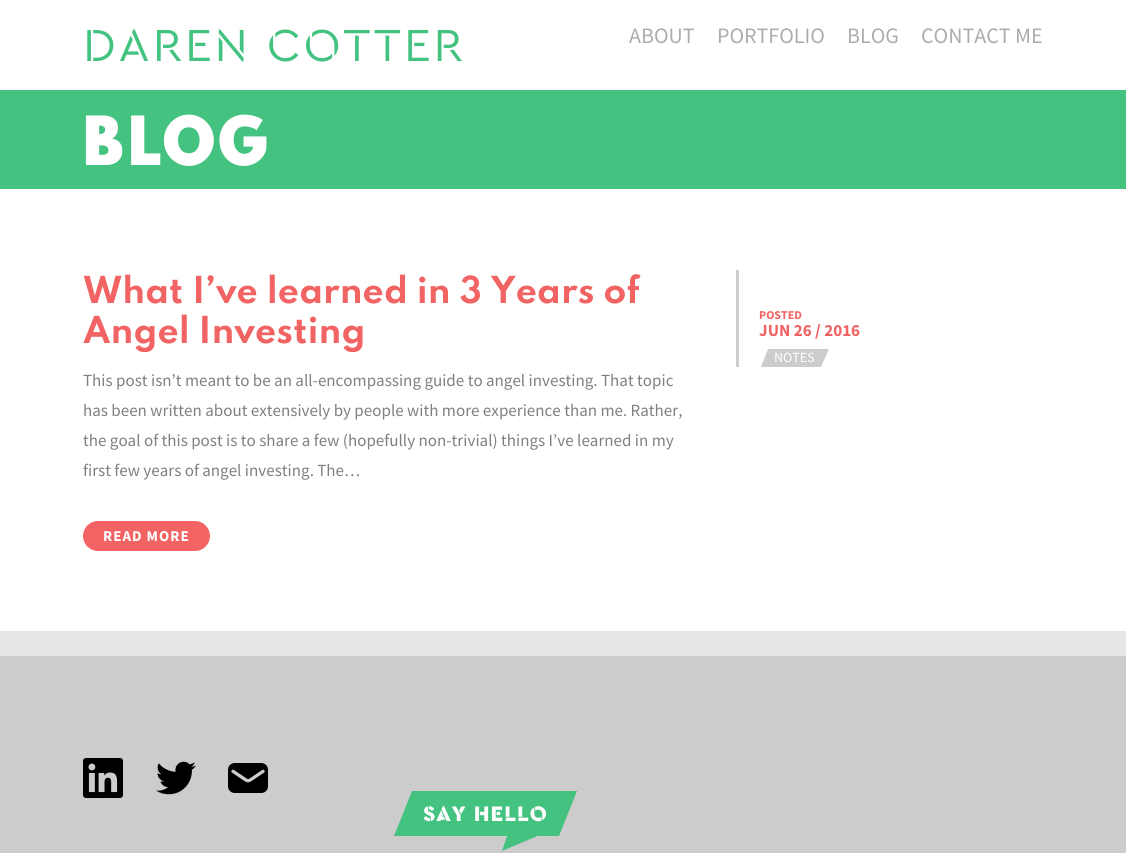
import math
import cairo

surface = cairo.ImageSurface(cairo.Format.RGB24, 1126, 853)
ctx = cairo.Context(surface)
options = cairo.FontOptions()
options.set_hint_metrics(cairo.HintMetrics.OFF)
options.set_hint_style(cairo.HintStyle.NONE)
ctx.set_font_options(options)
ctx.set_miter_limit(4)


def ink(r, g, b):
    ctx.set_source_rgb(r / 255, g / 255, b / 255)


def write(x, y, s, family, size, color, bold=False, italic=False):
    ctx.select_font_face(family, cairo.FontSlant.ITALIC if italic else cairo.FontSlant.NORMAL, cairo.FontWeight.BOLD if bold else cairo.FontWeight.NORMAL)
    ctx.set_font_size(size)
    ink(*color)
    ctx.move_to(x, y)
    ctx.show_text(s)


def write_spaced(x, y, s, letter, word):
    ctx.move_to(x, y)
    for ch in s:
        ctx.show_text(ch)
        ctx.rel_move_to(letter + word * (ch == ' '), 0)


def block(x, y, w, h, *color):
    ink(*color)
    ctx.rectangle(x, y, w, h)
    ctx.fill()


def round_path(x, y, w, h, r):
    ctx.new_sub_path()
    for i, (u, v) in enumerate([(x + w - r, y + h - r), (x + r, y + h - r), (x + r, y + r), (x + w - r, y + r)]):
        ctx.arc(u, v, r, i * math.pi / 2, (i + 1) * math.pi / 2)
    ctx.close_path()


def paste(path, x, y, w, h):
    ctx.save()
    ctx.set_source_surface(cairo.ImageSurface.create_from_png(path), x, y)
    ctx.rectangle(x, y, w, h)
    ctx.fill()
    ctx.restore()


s1 = dict(family="Source Sans Pro", size=22, color=(172, 172, 172))
s2 = dict(family="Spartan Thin", size=33, color=(242, 100, 100), bold=True)
s3 = dict(family="Source Sans Pro", size=17, color=(128, 128, 128))
s4 = dict(family="Source Sans Pro", size=12, color=(242, 100, 100), bold=True)
s5 = dict(family="Source Sans Pro", size=17, color=(242, 100, 100), bold=True)
s6 = dict(family="Source Sans Pro", size=14, color=(255, 255, 255))

ink(255, 255, 255)
ctx.paint()
ctx.select_font_face("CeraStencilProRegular")
ctx.set_font_size(47)
ink(67, 194, 128)
write_spaced(83, 61, "DAREN COTTER", 3, 0)
write(629, 43, "ABOUT", **s1)
write(717, 43, "PORTFOLIO", **s1)
write(847, 43, "BLOG", **s1)
write(921, 43, "CONTACT ME", **s1)
block(0, 90, 1126, 99, 67, 194, 128)
ctx.select_font_face("Spartan Thin Black")
ctx.set_font_size(60)
ink(255, 255, 255)
write_spaced(83, 165, "BLOG", 2, 0)
write(83, 303, "What I’ve learned in 3 Years of", **s2)
write(83, 343, "Angel Investing", **s2)
write(83, 386, "This post isn’t meant to be an all-encompassing guide to angel investing. That topic", **s3)
write(83, 416, "has been written about extensively by people with more experience than me. Rather,", **s3)
write(83, 446, "the goal of this post is to share a few (hopefully non-trivial) things I’ve learned in my", **s3)
write(83, 476, "first few years of angel investing. The…", **s3)
ink(242, 100, 100)
round_path(83, 521, 127, 30, 15)
ctx.fill()
ctx.select_font_face("Source Sans Pro", cairo.FontSlant.NORMAL, cairo.FontWeight.BOLD)
ctx.set_font_size(15)
ink(255, 255, 255)
write_spaced(103, 541, "READ MORE", 1, 0)
block(736, 270, 3, 97, 204, 204, 204)
write(759, 319, "POSTED", **s4)
write(759, 336, "JUN 26 / 2016", **s5)
ink(204, 204, 204)
ctx.new_path()
ctx.move_to(768, 349)
ctx.line_to(829, 349)
ctx.line_to(821, 367)
ctx.line_to(761, 367)
ctx.close_path()
ctx.fill()
write(774, 362, "NOTES", **s6)
block(0, 631, 1126, 25, 230, 230, 230)
block(0, 656, 1126, 197, 204, 204, 204)
paste("pic1.png", 83, 758, 40, 40)
paste("pic2.png", 156, 761, 40, 34)
paste("pic3.png", 228, 763, 40, 30)
ink(67, 194, 128)
ctx.new_path()
ctx.move_to(412, 791)
ctx.line_to(577, 791)
ctx.line_to(559, 836)
ctx.line_to(394, 836)
ctx.close_path()
ctx.fill()
ctx.new_path()
ctx.move_to(514, 816)
ctx.line_to(554, 799)
ctx.line_to(542, 834)
ctx.line_to(502, 851)
ctx.close_path()
ctx.fill()
ctx.select_font_face("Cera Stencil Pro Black")
ctx.set_font_size(22)
ink(255, 255, 255)
write_spaced(423, 821, "SAY HELLO", 1, 0)
surface.write_to_png("screenshot.png")
